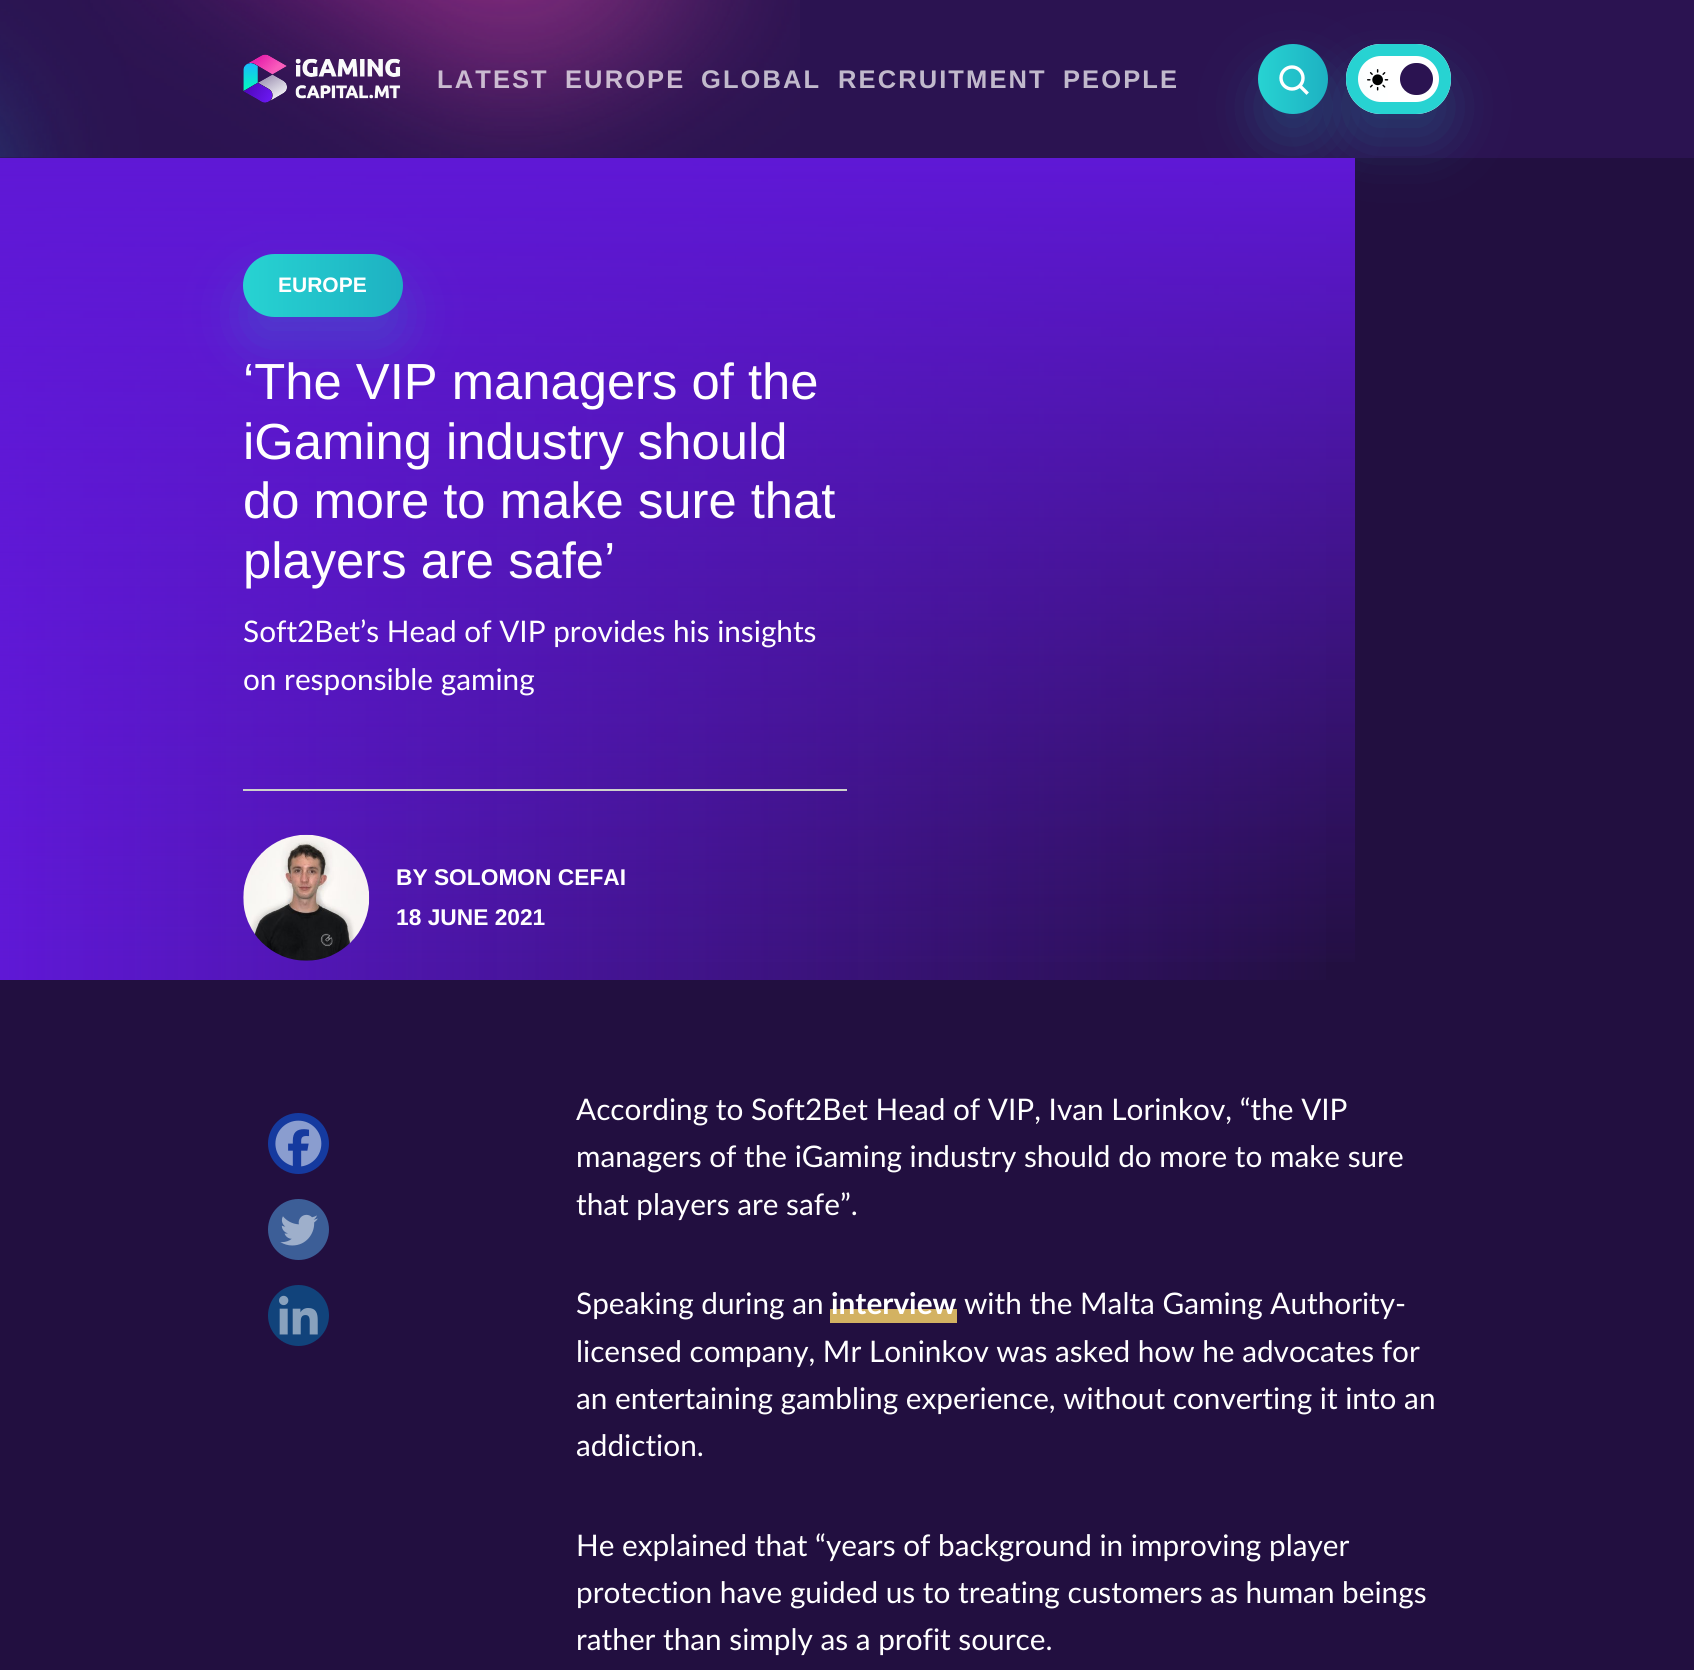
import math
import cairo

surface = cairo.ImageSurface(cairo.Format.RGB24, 1694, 1670)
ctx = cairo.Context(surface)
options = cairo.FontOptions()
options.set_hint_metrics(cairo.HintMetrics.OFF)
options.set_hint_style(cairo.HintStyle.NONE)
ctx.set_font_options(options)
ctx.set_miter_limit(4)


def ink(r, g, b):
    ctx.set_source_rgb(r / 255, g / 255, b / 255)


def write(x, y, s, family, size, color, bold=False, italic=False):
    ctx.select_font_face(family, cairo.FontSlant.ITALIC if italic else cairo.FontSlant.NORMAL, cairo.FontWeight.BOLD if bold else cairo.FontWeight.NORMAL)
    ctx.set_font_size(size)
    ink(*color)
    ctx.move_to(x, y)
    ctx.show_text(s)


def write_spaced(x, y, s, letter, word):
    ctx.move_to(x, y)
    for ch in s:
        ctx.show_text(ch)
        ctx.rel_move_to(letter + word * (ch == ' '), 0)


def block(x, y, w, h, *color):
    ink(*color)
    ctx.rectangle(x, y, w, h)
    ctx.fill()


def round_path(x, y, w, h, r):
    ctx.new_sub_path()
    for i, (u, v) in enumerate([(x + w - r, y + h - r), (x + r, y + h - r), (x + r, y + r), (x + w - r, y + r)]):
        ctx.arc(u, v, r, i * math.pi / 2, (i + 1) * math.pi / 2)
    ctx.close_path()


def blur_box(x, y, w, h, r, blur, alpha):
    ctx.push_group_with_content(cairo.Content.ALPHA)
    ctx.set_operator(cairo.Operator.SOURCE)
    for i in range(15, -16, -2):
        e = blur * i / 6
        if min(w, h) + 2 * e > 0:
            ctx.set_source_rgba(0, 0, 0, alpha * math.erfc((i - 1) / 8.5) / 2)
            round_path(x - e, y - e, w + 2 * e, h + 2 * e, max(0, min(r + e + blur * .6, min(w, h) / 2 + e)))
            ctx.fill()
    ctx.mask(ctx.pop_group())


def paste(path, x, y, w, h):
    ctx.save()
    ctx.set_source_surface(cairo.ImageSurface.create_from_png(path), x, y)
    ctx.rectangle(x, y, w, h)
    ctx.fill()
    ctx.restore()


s1 = dict(family="Liberation Sans", size=21, color=(255, 255, 255), bold=True)
s2 = dict(family="Liberation Sans", size=50.75, color=(255, 255, 255))
s3 = dict(family="Lato", size=29.75, color=(255, 255, 255))
s4 = dict(family="Liberation Sans", size=22.75, color=(255, 255, 255), bold=True)
s5 = dict(family="Lato", size=29.75, color=(255, 255, 255), bold=True)

ink(34, 15, 64)
ctx.paint()
block(0, 0, 1694, 158, 43, 19, 81)
paste("pic1.png", 0, 0, 800, 158)
paste("pic2.png", 243, 54, 158, 49)
ctx.select_font_face("Liberation Sans", cairo.FontSlant.NORMAL, cairo.FontWeight.BOLD)
ctx.set_font_size(25.5)
ink(203, 187, 209)
write_spaced(437, 88, "LATEST", 2.1, 0)
write_spaced(565, 88, "EUROPE", 2.1, 0)
ink(193, 185, 204)
write_spaced(701, 88, "GLOBAL", 2.1, 0)
write_spaced(838, 88, "RECRUITMENT", 2.1, 0)
write_spaced(1063, 88, "PEOPLE", 2.1, 0)
ink(29, 177, 194)
blur_box(1346, 72, 105, 70, 35, 28, 0.24)
ink(255, 255, 255)
round_path(1346, 44, 105, 70, 35)
ctx.fill()
paste("pic3.png", 1367, 69, 22, 22)
round_path(1352, 50, 93, 58, 29)
ink(39, 211, 210)
ctx.set_line_width(12)
ctx.stroke()
ink(29, 177, 194)
blur_box(1258, 72, 70, 70, 35, 28, 0.24)
gradient = cairo.LinearGradient(1258, 79, 1328, 79)
gradient.add_color_stop_rgba(0, 0.153, 0.827, 0.824, 1)
gradient.add_color_stop_rgba(1, 0.114, 0.694, 0.761, 1)
ctx.set_source(gradient)
ctx.arc(1293, 79, 35, 0, 2 * math.pi)
ctx.fill()
ctx.arc(1292, 78, 11, 0, 2 * math.pi)
ink(255, 255, 255)
ctx.set_line_width(3.4)
ctx.stroke()
ctx.new_path()
ctx.move_to(1306.5, 92.5)
ctx.line_to(1300.5, 86.5)
ctx.set_line_cap(cairo.LineCap.SQUARE)
ctx.stroke()
ink(43, 19, 81)
round_path(1400, 63, 33, 32, 16)
ctx.fill()
gradient = cairo.LinearGradient(1355, 569, 0, 569)
gradient.add_color_stop_rgba(0, 0.373, 0.094, 0.839, 0)
gradient.add_color_stop_rgba(1, 0.373, 0.094, 0.839, 1)
ctx.set_source(gradient)
ctx.rectangle(0, 163, 1326, 817)
ctx.fill()
gradient = cairo.LinearGradient(677, 980, 677, 158)
gradient.add_color_stop_rgba(0, 0.373, 0.094, 0.839, 0)
gradient.add_color_stop_rgba(1, 0.373, 0.094, 0.839, 1)
ctx.set_source(gradient)
ctx.rectangle(0, 158, 1355, 804)
ctx.fill()
block(243, 789, 604, 2, 205, 209, 203)
ink(29, 177, 194)
blur_box(243, 282, 160, 63, 31.5, 28, 0.24)
gradient = cairo.LinearGradient(243, 285, 403, 285)
gradient.add_color_stop_rgba(0, 0.153, 0.827, 0.824, 1)
gradient.add_color_stop_rgba(1, 0.114, 0.694, 0.761, 1)
ctx.set_source(gradient)
round_path(243, 254, 160, 63, 31.5)
ctx.fill()
write(278, 292, "EUROPE", **s1)
write(243, 399, "‘The VIP managers of the", **s2)
write(243, 459, "iGaming industry should", **s2)
write(243, 518, "do more to make sure that", **s2)
write(243, 578, "players are safe’", **s2)
write(243, 642, "Soft2Bet’s Head of VIP provides his insights", **s3)
write(243, 690, "on responsible gaming", **s3)
paste("pic4.png", 243, 834, 127, 127)
write(396, 885, "BY SOLOMON CEFAI", **s4)
write(396, 925, "18 JUNE 2021", **s4)
ink(21, 58, 159)
ctx.new_path()
ctx.arc(298.5, 1143.5, 30.5, 0, 2 * math.pi)
ctx.fill()
paste("pic5.png", 275, 1120, 47, 47)
ink(60, 94, 151)
ctx.arc(298.5, 1229.5, 30.5, 0, 2 * math.pi)
ctx.fill()
paste("pic6.png", 280, 1214, 38, 32)
ink(17, 67, 123)
ctx.arc(298.5, 1315.5, 30.5, 0, 2 * math.pi)
ctx.fill()
paste("pic7.png", 279, 1295, 39, 40)
write(576, 1120, "According to Soft2Bet Head of VIP, Ivan Lorinkov, “the VIP", **s3)
write(576, 1167, "managers of the iGaming industry should do more to make sure", **s3)
write(576, 1215, "that players are safe”.", **s3)
write(576, 1314, "Speaking during an", **s3)
block(830, 1309, 127, 14, 211, 178, 98)
write(831, 1314, "interview", **s5)
write(964, 1314, "with the Malta Gaming Authority-", **s3)
write(576, 1362, "licensed company, Mr Loninkov was asked how he advocates for", **s3)
write(576, 1409, "an entertaining gambling experience, without converting it into an", **s3)
write(576, 1456, "addiction.", **s3)
write(576, 1556, "He explained that “years of background in improving player", **s3)
write(576, 1603, "protection have guided us to treating customers as human beings", **s3)
write(576, 1650, "rather than simply as a profit source.", **s3)
surface.write_to_png("screenshot.png")
